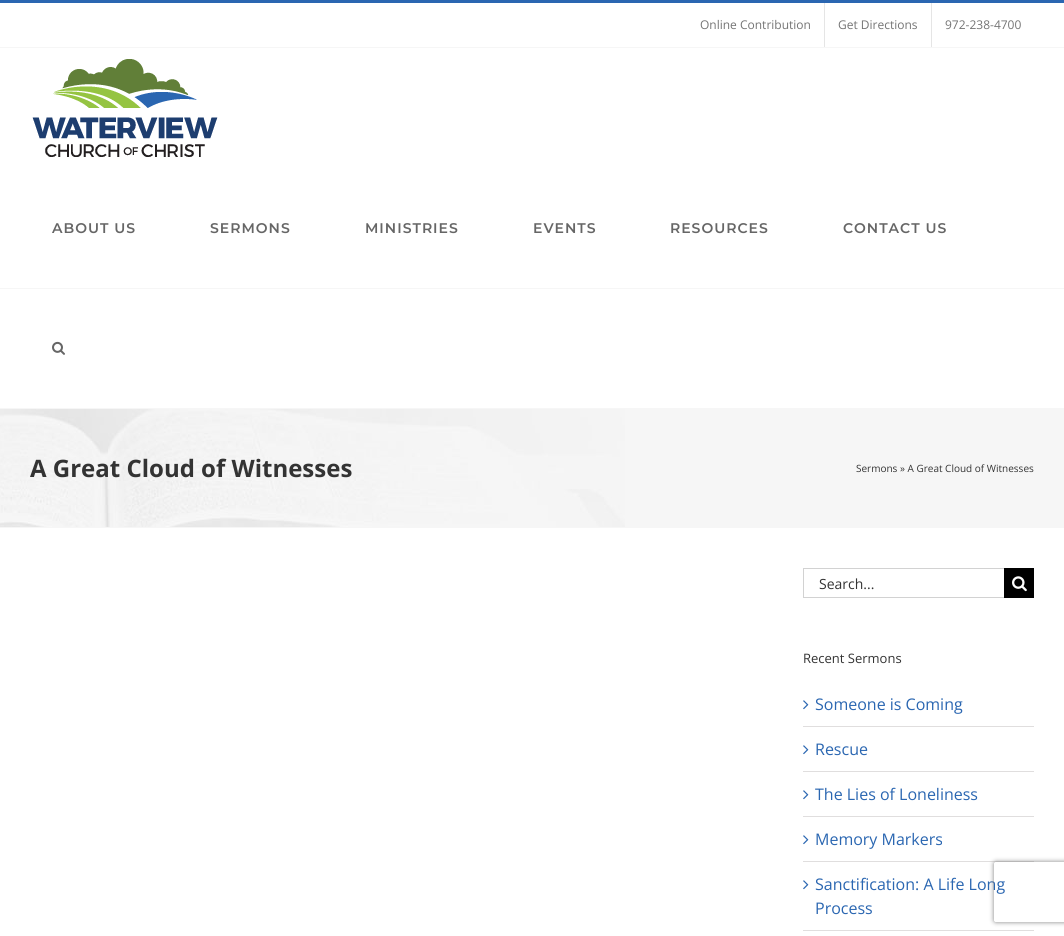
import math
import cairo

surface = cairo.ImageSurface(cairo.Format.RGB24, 1064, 936)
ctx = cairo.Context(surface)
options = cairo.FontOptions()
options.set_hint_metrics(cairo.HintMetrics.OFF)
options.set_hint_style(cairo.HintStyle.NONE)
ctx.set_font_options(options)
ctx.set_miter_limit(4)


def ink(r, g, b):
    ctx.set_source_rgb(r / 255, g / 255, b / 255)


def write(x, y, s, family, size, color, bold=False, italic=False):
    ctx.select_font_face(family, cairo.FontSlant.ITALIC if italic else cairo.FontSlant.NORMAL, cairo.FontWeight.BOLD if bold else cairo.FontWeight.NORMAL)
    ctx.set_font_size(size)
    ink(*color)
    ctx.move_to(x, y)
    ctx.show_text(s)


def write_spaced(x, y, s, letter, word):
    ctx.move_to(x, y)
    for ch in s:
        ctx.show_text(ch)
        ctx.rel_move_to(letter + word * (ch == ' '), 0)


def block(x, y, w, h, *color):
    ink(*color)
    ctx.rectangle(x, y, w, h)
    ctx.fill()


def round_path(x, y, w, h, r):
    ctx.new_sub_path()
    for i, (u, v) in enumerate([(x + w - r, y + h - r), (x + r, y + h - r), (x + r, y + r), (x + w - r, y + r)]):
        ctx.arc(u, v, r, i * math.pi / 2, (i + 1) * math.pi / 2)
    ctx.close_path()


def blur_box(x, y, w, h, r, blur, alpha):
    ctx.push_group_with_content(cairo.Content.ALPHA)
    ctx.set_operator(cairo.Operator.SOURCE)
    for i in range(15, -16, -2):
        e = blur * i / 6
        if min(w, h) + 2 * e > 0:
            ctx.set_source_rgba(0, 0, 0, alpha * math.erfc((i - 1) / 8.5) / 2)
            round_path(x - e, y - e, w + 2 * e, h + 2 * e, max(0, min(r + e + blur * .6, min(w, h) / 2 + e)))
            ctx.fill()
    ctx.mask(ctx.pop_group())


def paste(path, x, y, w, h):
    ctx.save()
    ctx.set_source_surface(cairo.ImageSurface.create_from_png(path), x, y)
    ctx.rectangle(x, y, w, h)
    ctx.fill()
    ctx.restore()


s1 = dict(family="Open Sans", size=12, color=(116, 116, 116))
s2 = dict(family="Open Sans", size=24, color=(51, 51, 51), bold=True)
s3 = dict(family="Open Sans", size=10, color=(51, 51, 51))
s4 = dict(family="Open Sans", size=14, color=(51, 51, 51))
s5 = dict(family="Open Sans", size=13, color=(51, 51, 51))
s6 = dict(family="Open Sans", size=16, color=(42, 102, 177))

ink(255, 255, 255)
ctx.paint()
block(0, 0, 1064, 3, 42, 102, 177)
block(0, 47, 1064, 1, 246, 246, 246)
write(700, 29, "Online Contribution", **s1)
block(824, 3, 1, 44, 229, 229, 229)
write(838, 29, "Get Directions", **s1)
block(931, 3, 1, 44, 229, 229, 229)
write(945, 29, "972-238-4700", **s1)
block(0, 288, 1064, 1, 246, 246, 246)
paste("pic1.png", 32, 59, 186, 98)
ctx.select_font_face("Montserrat SemiBold")
ctx.set_font_size(14)
ink(102, 102, 102)
write_spaced(52, 233, "ABOUT US", 1, 0)
write_spaced(210, 233, "SERMONS", 1, 0)
write_spaced(365, 233, "MINISTRIES", 1, 0)
write_spaced(533, 233, "EVENTS", 1, 0)
write_spaced(670, 233, "RESOURCES", 1, 0)
write_spaced(843, 233, "CONTACT US", 1, 0)
paste("pic2.png", 52, 341, 13, 14)
block(625, 409, 439, 118, 246, 246, 246)
paste("pic3.png", 0, 409, 625, 118)
block(0, 408, 1064, 1, 246, 246, 246)
block(0, 527, 1064, 1, 246, 246, 246)
write(30, 477, "A Great Cloud of Witnesses", **s2)
write(856, 472, "Sermons » A Great Cloud of Witnesses", **s3)
block(803, 568, 201, 1, 210, 210, 210)
block(803, 597, 201, 1, 210, 210, 210)
block(803, 568, 1, 30, 210, 210, 210)
write(819, 589, "Search...", **s4)
block(1004, 568, 30, 30, 0, 0, 0)
paste("pic4.png", 1012, 576, 15, 16)
write(803, 663, "Recent Sermons", **s5)
block(803, 726, 231, 1, 224, 222, 222)
paste("pic5.png", 803, 700, 6, 10)
write(815, 710, "Someone is Coming", **s6)
block(803, 771, 231, 1, 224, 222, 222)
paste("pic5.png", 803, 745, 6, 10)
write(815, 755, "Rescue", **s6)
block(803, 816, 231, 1, 224, 222, 222)
paste("pic5.png", 803, 790, 6, 10)
write(815, 800, "The Lies of Loneliness", **s6)
block(803, 861, 231, 1, 224, 222, 222)
paste("pic5.png", 803, 835, 6, 10)
write(815, 845, "Memory Markers", **s6)
block(803, 930, 231, 1, 224, 222, 222)
paste("pic5.png", 803, 880, 6, 10)
write(815, 890, "Sanctification: A Life Long", **s6)
write(815, 914, "Process", **s6)
ctx.save()
ctx.set_fill_rule(cairo.FillRule.EVEN_ODD)
ctx.new_path()
ctx.move_to(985, 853)
ctx.line_to(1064, 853)
ctx.line_to(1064, 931)
ctx.line_to(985, 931)
ctx.close_path()
ctx.move_to(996, 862)
ctx.line_to(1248, 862)
ctx.curve_to(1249, 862, 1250, 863, 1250, 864)
ctx.line_to(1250, 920)
ctx.curve_to(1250, 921, 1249, 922, 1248, 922)
ctx.line_to(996, 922)
ctx.curve_to(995, 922, 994, 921, 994, 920)
ctx.line_to(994, 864)
ctx.curve_to(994, 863, 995, 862, 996, 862)
ctx.close_path()
ctx.clip()
ink(128, 128, 128)
blur_box(994, 862, 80, 60, 2, 2.5, 1)
ctx.restore()
surface.write_to_png("screenshot.png")
